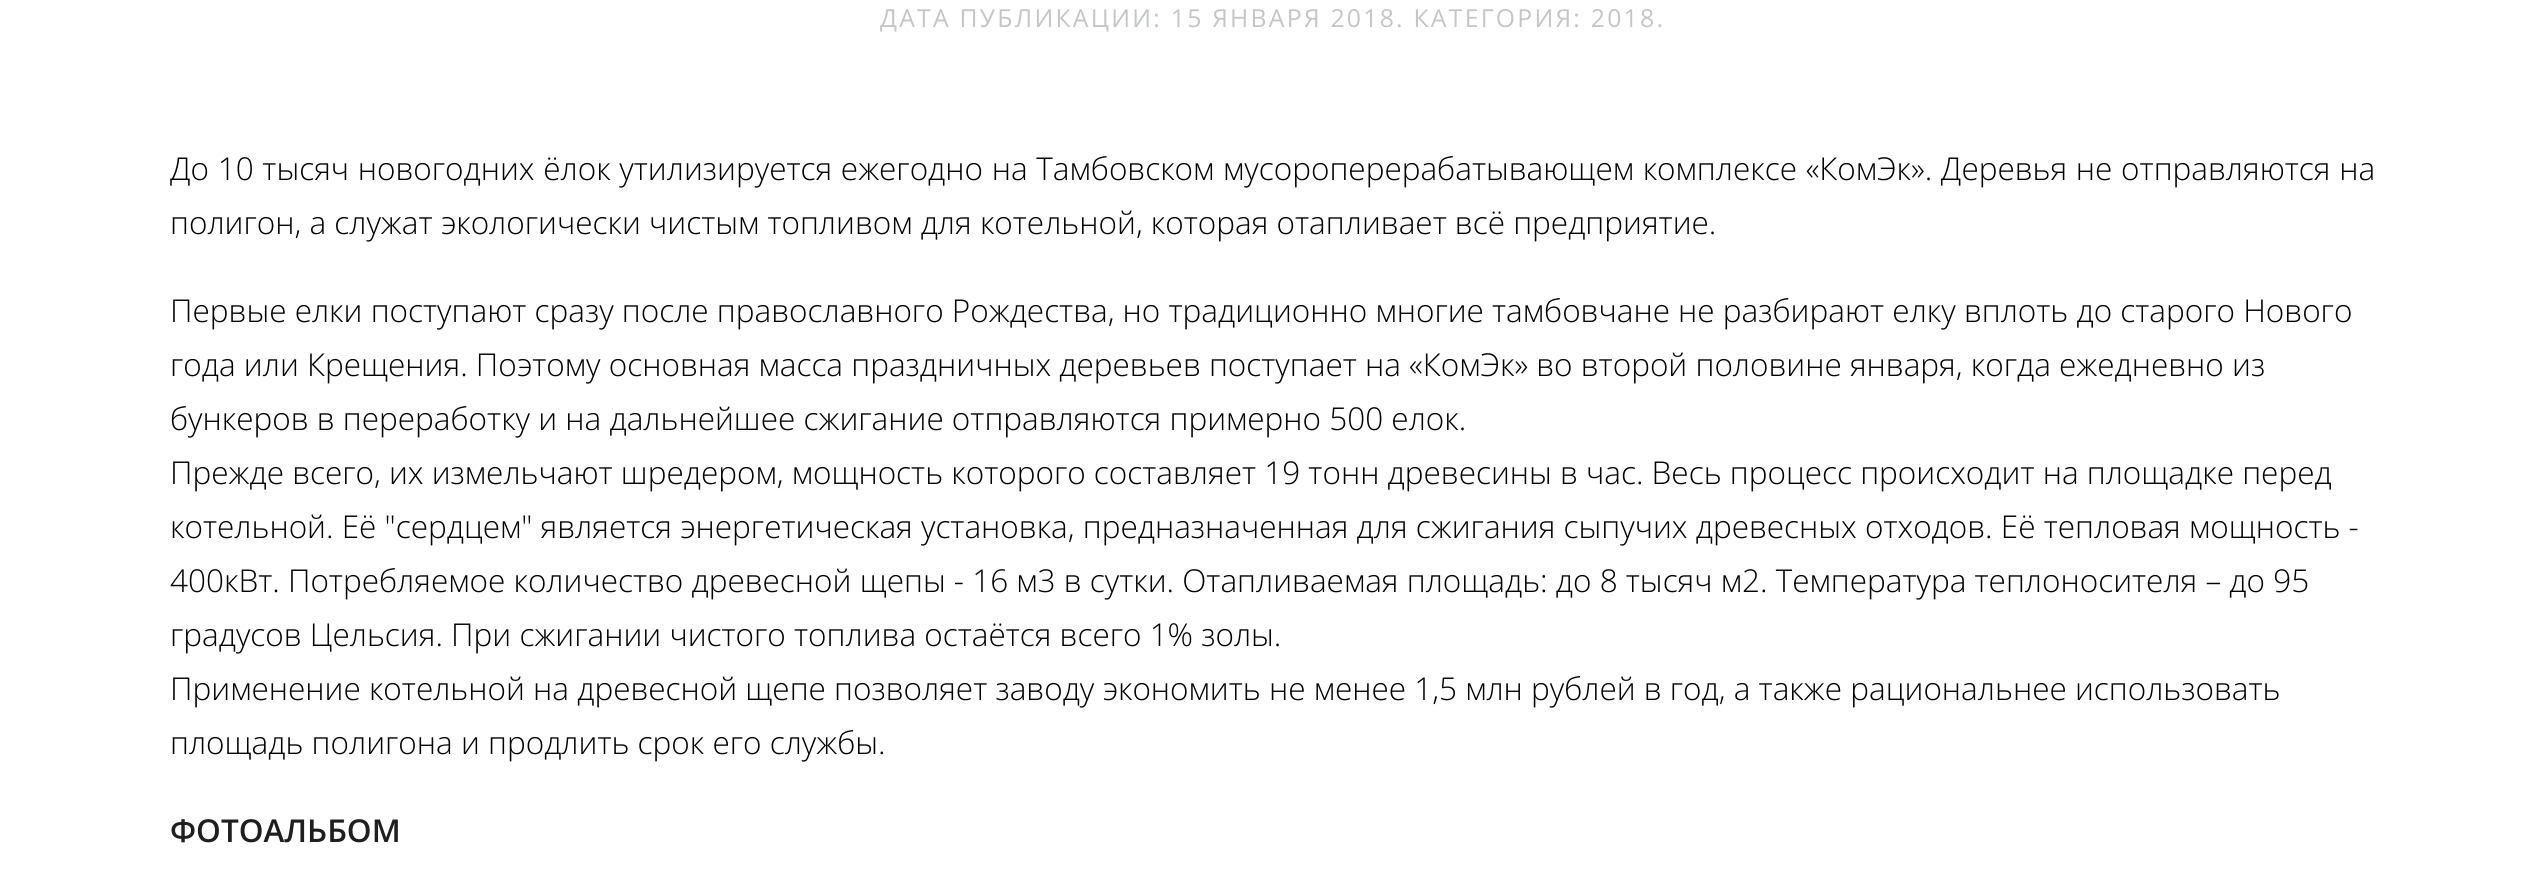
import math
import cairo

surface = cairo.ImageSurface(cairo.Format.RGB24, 2544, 870)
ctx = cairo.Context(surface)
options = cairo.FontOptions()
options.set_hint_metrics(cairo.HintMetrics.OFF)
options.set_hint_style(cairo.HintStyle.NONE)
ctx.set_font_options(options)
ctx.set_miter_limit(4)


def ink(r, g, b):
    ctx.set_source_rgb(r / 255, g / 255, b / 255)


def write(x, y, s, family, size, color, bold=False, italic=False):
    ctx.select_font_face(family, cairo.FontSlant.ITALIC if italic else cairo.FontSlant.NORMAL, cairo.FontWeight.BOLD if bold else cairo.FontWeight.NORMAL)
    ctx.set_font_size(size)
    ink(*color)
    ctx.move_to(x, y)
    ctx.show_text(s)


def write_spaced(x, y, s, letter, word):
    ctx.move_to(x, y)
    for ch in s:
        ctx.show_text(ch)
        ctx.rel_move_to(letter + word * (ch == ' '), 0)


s1 = dict(family="Open Sans Light", size=31.5, color=(0, 0, 0))
s2 = dict(family="Open Sans SemiBold", size=31.5, color=(31, 30, 32))

ink(255, 255, 255)
ctx.paint()
ctx.select_font_face("Open Sans")
ctx.set_font_size(24.75)
ink(196, 197, 198)
write_spaced(880, 27, "ДАТА ПУБЛИКАЦИИ: 15 ЯНВАРЯ 2018. КАТЕГОРИЯ: 2018.", 2.25, 0)
ctx.select_font_face("Open Sans Light")
ctx.set_font_size(31.5)
ink(0, 0, 0)
write_spaced(170, 180, "До 10 тысяч новогодних ёлок утилизируется ежегодно на Тамбовском мусороперерабатывающем комплексе «КомЭк». Деревья не отправляются на", 0, 0.5)
write(170, 234, "полигон, а служат экологически чистым топливом для котельной, которая отапливает всё предприятие.", **s1)
write(170, 322, "Первые елки поступают сразу после православного Рождества, но традиционно многие тамбовчане не разбирают елку вплоть до старого Нового", **s1)
write(170, 376, "года или Крещения. Поэтому основная масса праздничных деревьев поступает на «КомЭк» во второй половине января, когда ежедневно из", **s1)
write(170, 430, "бункеров в переработку и на дальнейшее сжигание отправляются примерно 500 елок.", **s1)
write(170, 484, "Прежде всего, их измельчают шредером, мощность которого составляет 19 тонн древесины в час. Весь процесс происходит на площадке перед", **s1)
write(170, 538, "котельной. Её \"сердцем\" является энергетическая установка, предназначенная для сжигания сыпучих древесных отходов. Её тепловая мощность -", **s1)
write(170, 592, "400кВт. Потребляемое количество древесной щепы - 16 м3 в сутки. Отапливаемая площадь: до 8 тысяч м2. Температура теплоносителя – до 95", **s1)
write(170, 646, "градусов Цельсия. При сжигании чистого топлива остаётся всего 1% золы.", **s1)
write(170, 700, "Применение котельной на древесной щепе позволяет заводу экономить не менее 1,5 млн рублей в год, а также рациональнее использовать", **s1)
write(170, 754, "площадь полигона и продлить срок его службы.", **s1)
write(170, 842, "ФОТОАЛЬБОМ", **s2)
surface.write_to_png("screenshot.png")
